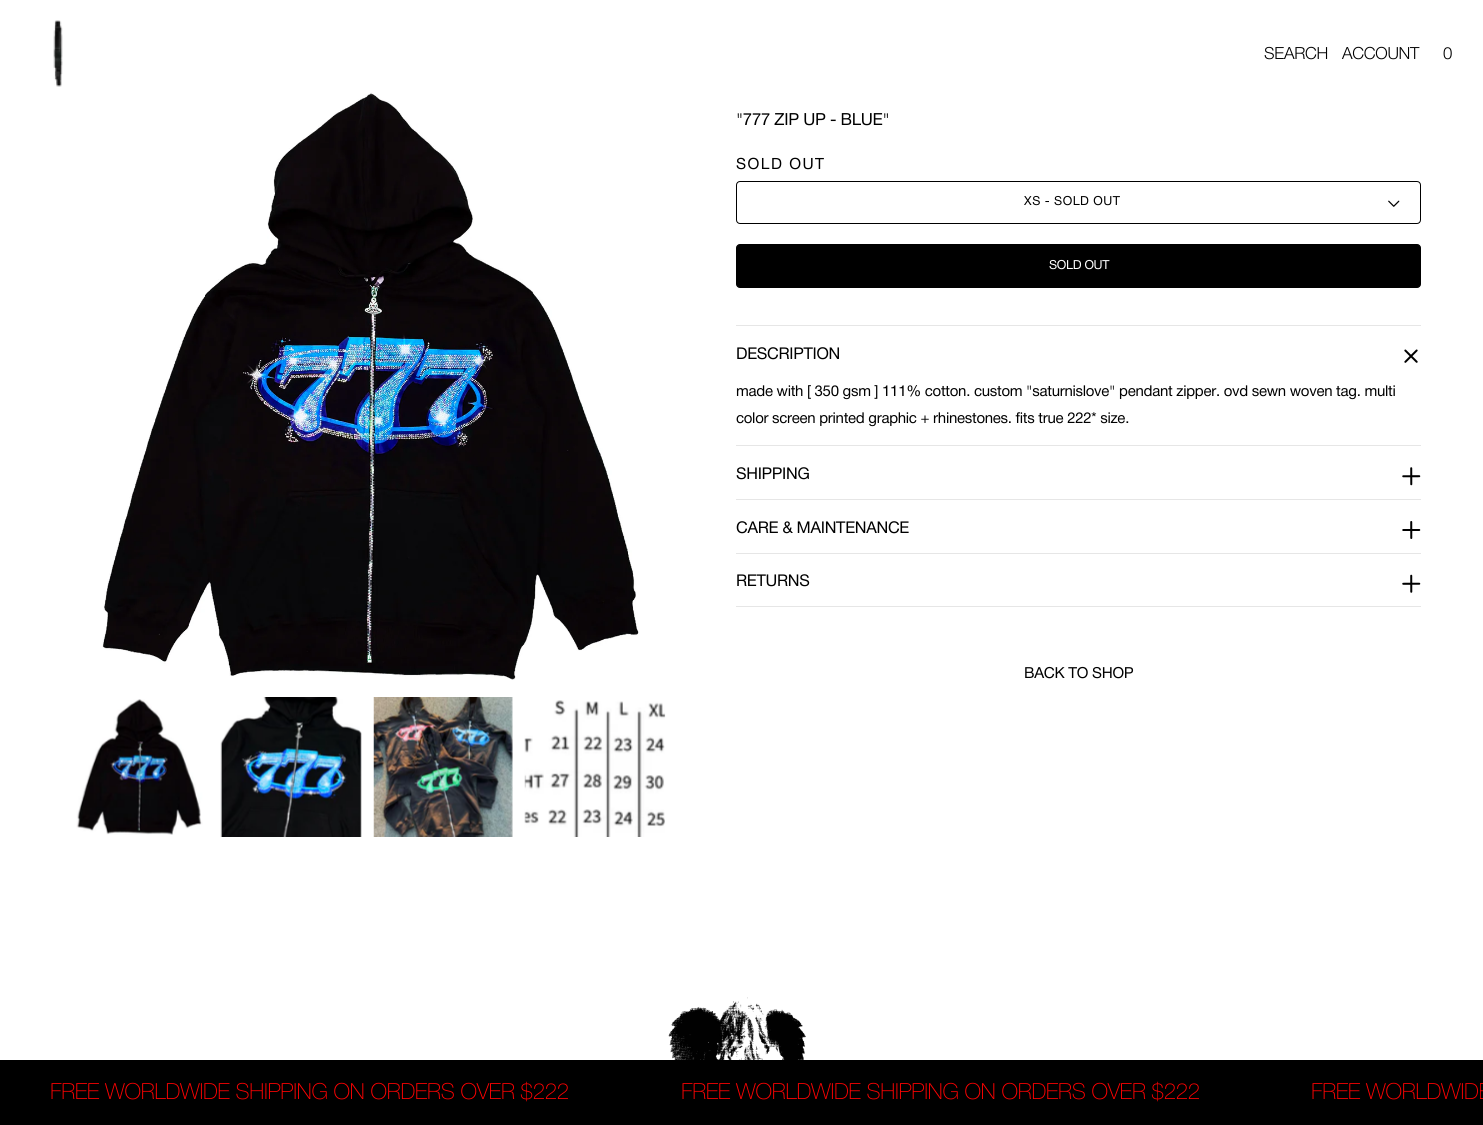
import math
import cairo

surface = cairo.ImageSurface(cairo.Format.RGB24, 1483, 1125)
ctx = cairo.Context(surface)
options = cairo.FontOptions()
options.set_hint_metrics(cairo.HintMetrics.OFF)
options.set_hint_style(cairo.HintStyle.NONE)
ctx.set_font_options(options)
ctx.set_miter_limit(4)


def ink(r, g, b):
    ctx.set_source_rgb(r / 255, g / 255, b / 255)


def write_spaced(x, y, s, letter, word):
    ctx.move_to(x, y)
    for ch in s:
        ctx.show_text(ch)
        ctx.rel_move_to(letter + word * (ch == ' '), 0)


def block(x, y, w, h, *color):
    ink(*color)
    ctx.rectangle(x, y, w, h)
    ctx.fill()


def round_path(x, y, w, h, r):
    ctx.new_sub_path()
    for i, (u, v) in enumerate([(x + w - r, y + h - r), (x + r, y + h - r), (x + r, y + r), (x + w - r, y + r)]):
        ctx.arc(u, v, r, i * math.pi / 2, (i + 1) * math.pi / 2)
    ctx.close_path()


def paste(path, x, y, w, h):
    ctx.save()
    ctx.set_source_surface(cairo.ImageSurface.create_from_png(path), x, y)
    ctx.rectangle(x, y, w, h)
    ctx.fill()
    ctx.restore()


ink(255, 255, 255)
ctx.paint()
paste("pic1.png", 53, 20, 10, 67)
ctx.select_font_face("Helvetica Neue Light")
ctx.set_font_size(16.75)
ink(0, 0, 0)
write_spaced(1264, 59, "SEARCH", -0.28, 0)
write_spaced(1342, 59, "ACCOUNT", -0.28, 0)
write_spaced(1443, 59, "0", -0.28, 0)
paste("pic2.png", 102, 92, 537, 588)
paste("pic3.png", 76, 699, 127, 136)
paste("pic4.png", 220, 697, 142, 140)
paste("pic5.png", 373, 697, 140, 140)
paste("pic6.png", 524, 700, 142, 137)
ctx.select_font_face("Helvetica Neue")
write_spaced(736, 125, "\"777 ZIP UP - BLUE\"", -0.28, 0)
ctx.set_font_size(15.5)
write_spaced(736, 169, "SOLD OUT", 1.5, 0)
round_path(736.5, 181.5, 684, 42, 3.5)
ctx.set_line_width(1)
ctx.stroke()
ctx.set_font_size(12.5)
write_spaced(1024, 205, "XS - SOLD OUT", 0.5, 0)
paste("pic7.png", 1388, 200, 12, 7)
round_path(736.5, 244.5, 684, 43, 3.5)
ctx.fill_preserve()
ctx.stroke()
ink(255, 255, 255)
write_spaced(1049, 269, "SOLD OUT", -0.28, 0)
block(736, 325, 685, 1, 230, 230, 230)
block(736, 445, 685, 1, 230, 230, 230)
ctx.set_font_size(16.25)
ink(0, 0, 0)
write_spaced(736, 359, "DESCRIPTION", -0.28, 0)
paste("pic8.png", 1404, 349, 14, 14)
ctx.set_font_size(15)
write_spaced(736, 396, "made with [ 350 gsm ] 111% cotton. custom \"saturnislove\" pendant zipper. ovd sewn woven tag. multi", -0.28, 0)
write_spaced(736, 423, "color screen printed graphic + rhinestones. fits true 222* size.", -0.28, 0)
block(736, 499, 685, 1, 230, 230, 230)
ctx.set_font_size(16.25)
ink(0, 0, 0)
write_spaced(736, 479, "SHIPPING", -0.28, 0)
paste("pic9.png", 1402, 467, 19, 19)
block(736, 553, 685, 1, 230, 230, 230)
ink(0, 0, 0)
write_spaced(736, 533, "CARE & MAINTENANCE", -0.28, 0)
paste("pic10.png", 1402, 521, 19, 18)
block(736, 606, 685, 1, 230, 230, 230)
ink(0, 0, 0)
write_spaced(736, 586, "RETURNS", -0.28, 0)
paste("pic11.png", 1402, 574, 19, 19)
ctx.set_font_size(15.25)
write_spaced(1024, 678, "BACK TO SHOP", -0.28, 0)
paste("pic12.png", 668, 997, 138, 63)
block(0, 1060, 1483, 65, 0, 0, 0)
ctx.select_font_face("Helvetica Neue Thin")
ctx.set_font_size(22.25)
ink(255, 2, 2)
write_spaced(50, 1099, "FREE WORLDWIDE SHIPPING ON ORDERS OVER $222", -0.28, 0)
write_spaced(681, 1099, "FREE WORLDWIDE SHIPPING ON ORDERS OVER $222", -0.28, 0)
write_spaced(1311, 1099, "FREE WORLDWIDE", -0.28, 0)
surface.write_to_png("screenshot.png")
